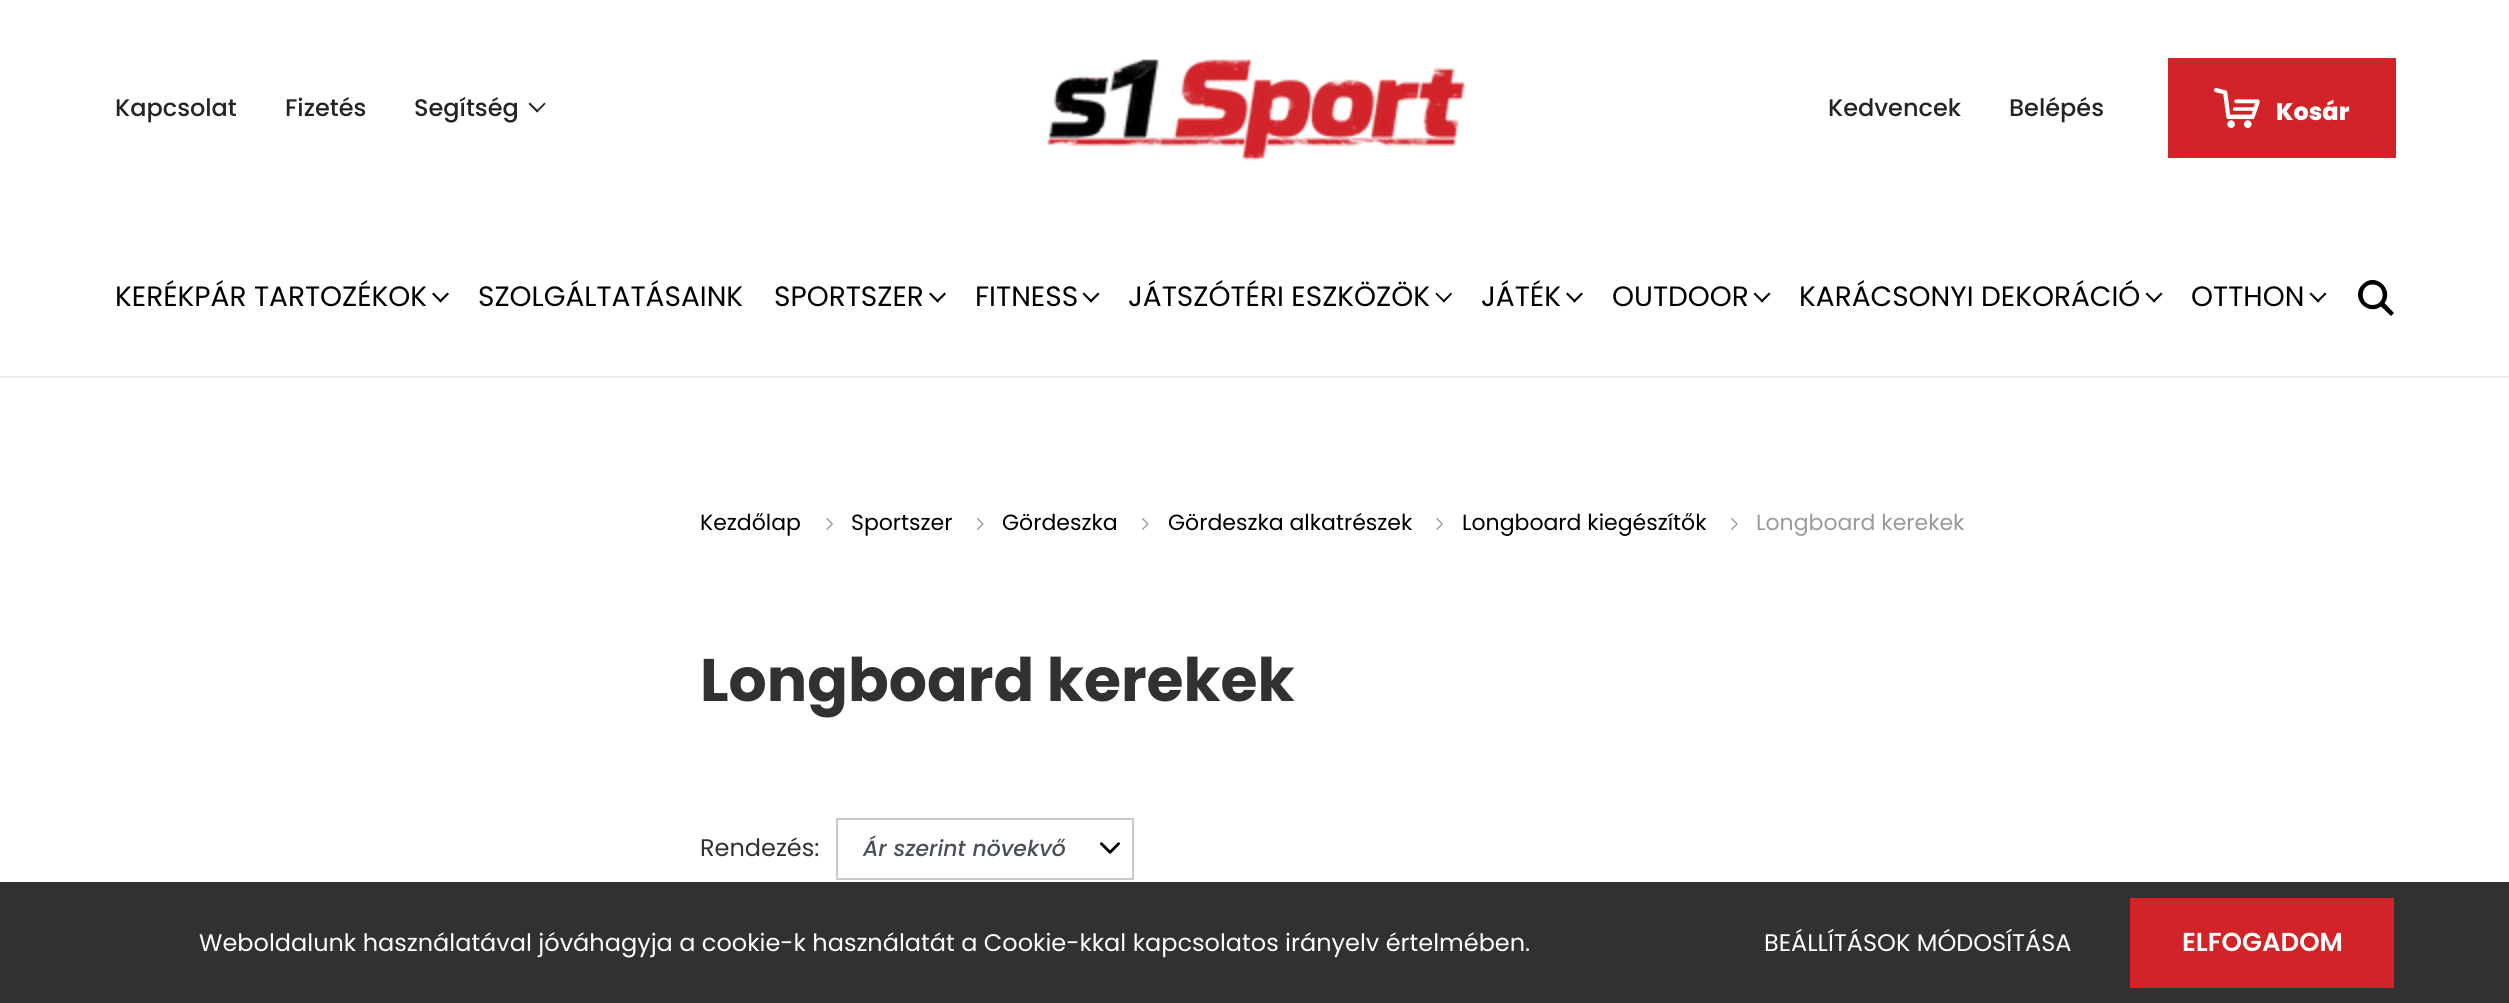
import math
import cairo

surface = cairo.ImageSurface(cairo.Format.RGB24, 2509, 1003)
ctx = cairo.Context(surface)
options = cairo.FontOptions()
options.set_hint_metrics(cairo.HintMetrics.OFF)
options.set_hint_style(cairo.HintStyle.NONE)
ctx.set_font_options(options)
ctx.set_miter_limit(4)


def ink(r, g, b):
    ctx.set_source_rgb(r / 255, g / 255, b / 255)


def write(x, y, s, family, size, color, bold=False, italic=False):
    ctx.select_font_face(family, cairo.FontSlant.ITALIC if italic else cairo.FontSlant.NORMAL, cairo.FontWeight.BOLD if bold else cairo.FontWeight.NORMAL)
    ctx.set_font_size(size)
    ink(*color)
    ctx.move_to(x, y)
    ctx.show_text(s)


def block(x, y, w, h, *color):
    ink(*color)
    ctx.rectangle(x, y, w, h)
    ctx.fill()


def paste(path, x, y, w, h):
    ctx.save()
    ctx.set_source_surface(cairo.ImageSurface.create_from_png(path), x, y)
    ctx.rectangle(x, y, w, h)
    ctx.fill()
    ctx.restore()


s1 = dict(family="Poppins Medium", size=24, color=(36, 36, 36))
s2 = dict(family="Poppins ExtraBold", size=24, color=(255, 255, 255))
s3 = dict(family="Poppins", size=28, color=(0, 0, 0))
s4 = dict(family="Poppins", size=22, color=(0, 0, 0))
s5 = dict(family="Poppins", size=22, color=(154, 154, 154))
s6 = dict(family="Poppins", size=60, color=(49, 49, 49), bold=True)
s7 = dict(family="Poppins", size=24, color=(49, 49, 49))
s8 = dict(family="Poppins Medium", size=22, color=(73, 80, 87), italic=True)
s9 = dict(family="Poppins", size=24, color=(255, 255, 255))
s10 = dict(family="Poppins SemiBold", size=26, color=(255, 255, 255))

ink(255, 255, 255)
ctx.paint()
write(115, 116, "Kapcsolat", **s1)
write(285, 116, "Fizetés", **s1)
write(414, 116, "Segítség", **s1)
ctx.new_path()
ctx.move_to(544.5, 102.5)
ctx.line_to(545.5, 104)
ctx.line_to(537, 112.5)
ctx.line_to(536, 111)
ctx.close_path()
ctx.fill()
ctx.new_path()
ctx.move_to(530, 102.5)
ctx.line_to(538.5, 111)
ctx.line_to(537, 112.5)
ctx.line_to(528.5, 104)
ctx.close_path()
ctx.fill()
paste("pic1.png", 1047, 59, 418, 102)
write(1828, 116, "Kedvencek", **s1)
write(2009, 116, "Belépés", **s1)
block(2168, 58, 228, 100, 210, 35, 40)
paste("pic2.png", 2214, 88, 46, 40)
write(2276, 120, "Kosár", **s2)
block(0, 376, 2509, 2, 239, 240, 241)
write(115, 306, "KERÉKPÁR TARTOZÉKOK", **s3)
ctx.new_path()
ctx.move_to(447.5, 292.5)
ctx.line_to(449, 294)
ctx.line_to(440.5, 302.5)
ctx.line_to(439, 301)
ctx.close_path()
ctx.fill()
ctx.new_path()
ctx.move_to(433.5, 292.5)
ctx.line_to(442, 301)
ctx.line_to(440.5, 302.5)
ctx.line_to(432, 294)
ctx.close_path()
ctx.fill()
write(478, 306, "SZOLGÁLTATÁSAINK", **s3)
write(774, 306, "SPORTSZER", **s3)
ctx.new_path()
ctx.move_to(944.5, 292.5)
ctx.line_to(946, 294)
ctx.line_to(937.5, 302.5)
ctx.line_to(936, 301)
ctx.close_path()
ctx.fill()
ctx.new_path()
ctx.move_to(930.5, 292.5)
ctx.line_to(939, 301)
ctx.line_to(937.5, 302.5)
ctx.line_to(929, 294)
ctx.close_path()
ctx.fill()
write(975, 306, "FITNESS", **s3)
ctx.new_path()
ctx.move_to(1098, 292.5)
ctx.line_to(1099.5, 294)
ctx.line_to(1091, 302.5)
ctx.line_to(1089.5, 301)
ctx.close_path()
ctx.fill()
ctx.new_path()
ctx.move_to(1084, 292.5)
ctx.line_to(1092.5, 301)
ctx.line_to(1091, 302.5)
ctx.line_to(1082.5, 294)
ctx.close_path()
ctx.fill()
write(1128, 306, "JÁTSZÓTÉRI ESZKÖZÖK", **s3)
ctx.new_path()
ctx.move_to(1451, 292.5)
ctx.line_to(1452, 294)
ctx.line_to(1444, 302.5)
ctx.line_to(1442.5, 301)
ctx.close_path()
ctx.fill()
ctx.new_path()
ctx.move_to(1436.5, 292.5)
ctx.line_to(1445, 301)
ctx.line_to(1444, 302.5)
ctx.line_to(1435.5, 294)
ctx.close_path()
ctx.fill()
write(1481, 306, "JÁTÉK", **s3)
ctx.new_path()
ctx.move_to(1581.5, 292.5)
ctx.line_to(1583, 294)
ctx.line_to(1574.5, 302.5)
ctx.line_to(1573, 301)
ctx.close_path()
ctx.fill()
ctx.new_path()
ctx.move_to(1567.5, 292.5)
ctx.line_to(1576, 301)
ctx.line_to(1574.5, 302.5)
ctx.line_to(1566, 294)
ctx.close_path()
ctx.fill()
write(1612, 306, "OUTDOOR", **s3)
ctx.new_path()
ctx.move_to(1769, 292.5)
ctx.line_to(1770.5, 294)
ctx.line_to(1762, 302.5)
ctx.line_to(1760.5, 301)
ctx.close_path()
ctx.fill()
ctx.new_path()
ctx.move_to(1755, 292.5)
ctx.line_to(1763.5, 301)
ctx.line_to(1762, 302.5)
ctx.line_to(1753.5, 294)
ctx.close_path()
ctx.fill()
write(1799, 306, "KARÁCSONYI DEKORÁCIÓ", **s3)
ctx.new_path()
ctx.move_to(2161, 292.5)
ctx.line_to(2162.5, 294)
ctx.line_to(2154, 302.5)
ctx.line_to(2152.5, 301)
ctx.close_path()
ctx.fill()
ctx.new_path()
ctx.move_to(2147, 292.5)
ctx.line_to(2155.5, 301)
ctx.line_to(2154, 302.5)
ctx.line_to(2145.5, 294)
ctx.close_path()
ctx.fill()
write(2191, 306, "OTTHON", **s3)
ctx.new_path()
ctx.move_to(2325, 292.5)
ctx.line_to(2326.5, 294)
ctx.line_to(2318, 302.5)
ctx.line_to(2316.5, 301)
ctx.close_path()
ctx.fill()
ctx.new_path()
ctx.move_to(2311, 292.5)
ctx.line_to(2319.5, 301)
ctx.line_to(2318, 302.5)
ctx.line_to(2309.5, 294)
ctx.close_path()
ctx.fill()
ctx.new_path()
ctx.move_to(2384.5, 303)
ctx.curve_to(2394.5, 289, 2375, 271.5, 2362.5, 284.5)
ctx.curve_to(2349.5, 297, 2367, 316.5, 2381, 306.5)
ctx.line_to(2391, 316)
ctx.line_to(2394, 313)
ctx.close_path()
ctx.move_to(2372.5, 305)
ctx.curve_to(2359.5, 305, 2359.5, 284.5, 2372.5, 284.5)
ctx.curve_to(2386, 284.5, 2386, 305, 2372.5, 305)
ctx.close_path()
ctx.fill()
write(700, 530, "Kezdőlap", **s4)
paste("pic3.png", 826, 518, 7, 12)
write(851, 530, "Sportszer", **s4)
paste("pic4.png", 976, 518, 8, 12)
write(1002, 530, "Gördeszka", **s4)
paste("pic4.png", 1141, 518, 8, 12)
write(1168, 530, "Gördeszka alkatrészek", **s4)
paste("pic3.png", 1436, 518, 7, 12)
write(1462, 530, "Longboard kiegészítők", **s4)
paste("pic5.png", 1731, 518, 7, 12)
write(1756, 530, "Longboard kerekek", **s5)
write(700, 701, "Longboard kerekek", **s6)
write(700, 856, "Rendezés:", **s7)
paste("pic6.png", 1100, 842, 20, 12)
ctx.rectangle(837, 819, 296, 60)
ink(202, 202, 202)
ctx.stroke()
write(863, 856, "Ár szerint növekvő", **s8)
block(0, 882, 2509, 121, 49, 49, 49)
write(199, 951, "Weboldalunk használatával jóváhagyja a cookie-k használatát a Cookie-kkal kapcsolatos irányelv értelmében.", **s9)
write(1764, 951, "BEÁLLÍTÁSOK MÓDOSÍTÁSA", **s9)
block(2130, 898, 264, 90, 210, 35, 40)
write(2182, 951, "ELFOGADOM", **s10)
surface.write_to_png("screenshot.png")
